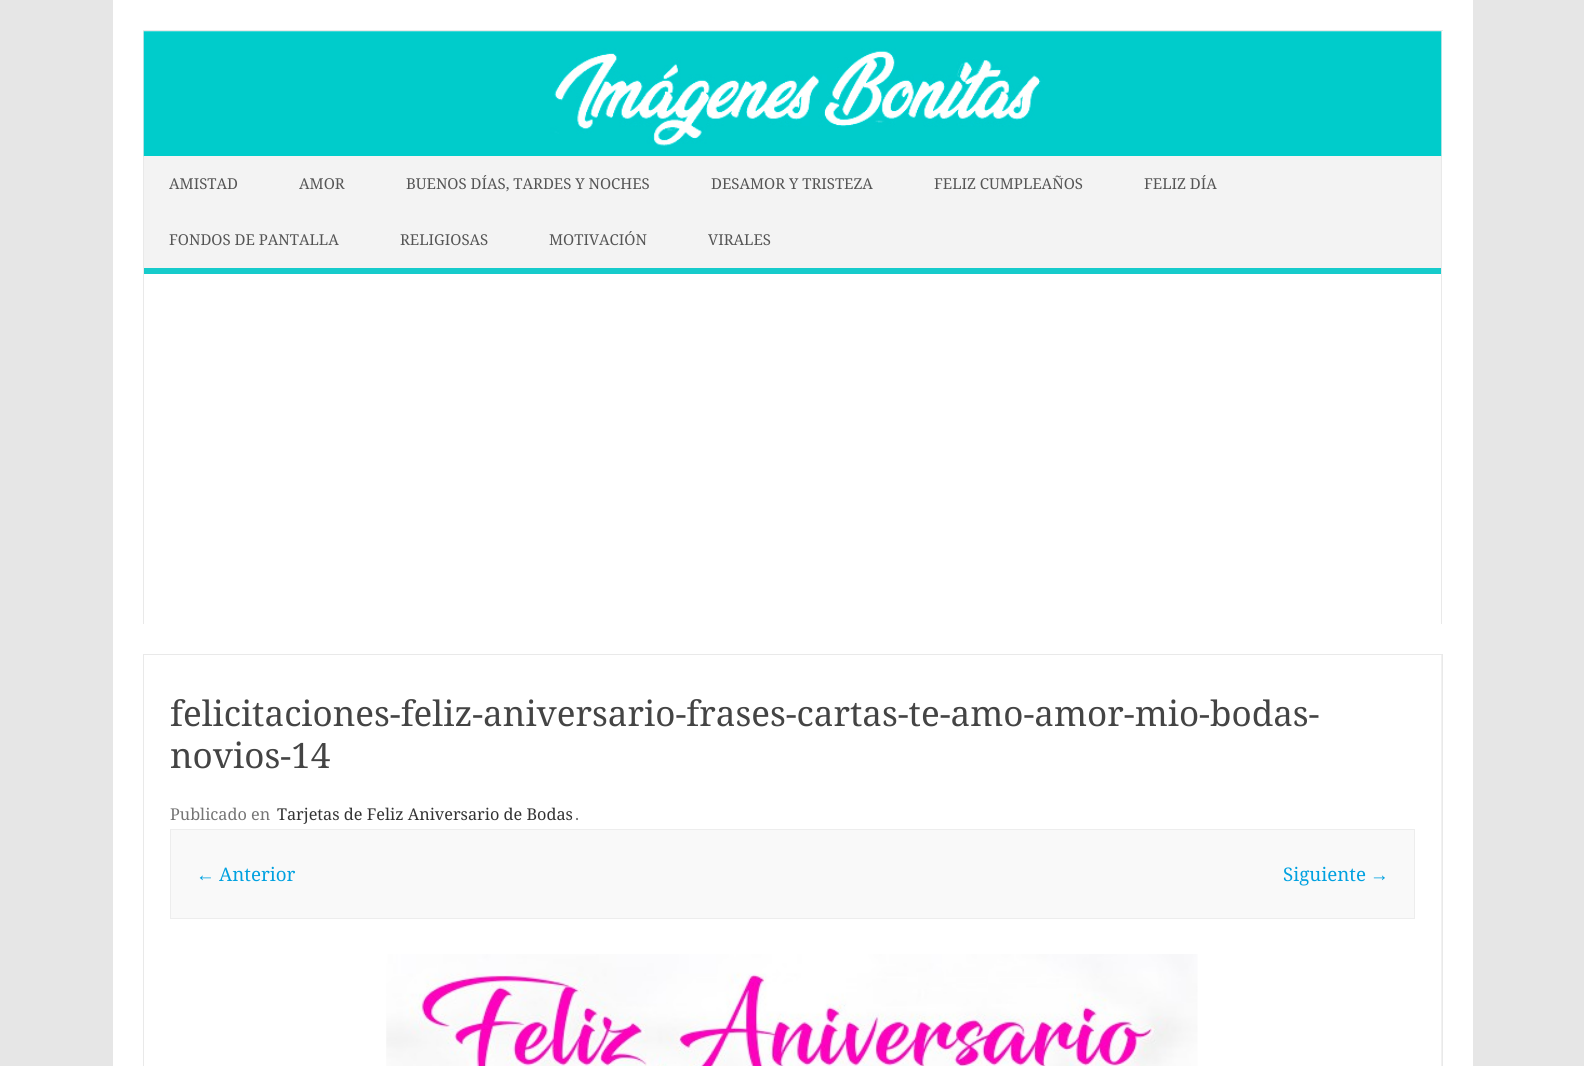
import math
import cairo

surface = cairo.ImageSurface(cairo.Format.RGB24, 1584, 1066)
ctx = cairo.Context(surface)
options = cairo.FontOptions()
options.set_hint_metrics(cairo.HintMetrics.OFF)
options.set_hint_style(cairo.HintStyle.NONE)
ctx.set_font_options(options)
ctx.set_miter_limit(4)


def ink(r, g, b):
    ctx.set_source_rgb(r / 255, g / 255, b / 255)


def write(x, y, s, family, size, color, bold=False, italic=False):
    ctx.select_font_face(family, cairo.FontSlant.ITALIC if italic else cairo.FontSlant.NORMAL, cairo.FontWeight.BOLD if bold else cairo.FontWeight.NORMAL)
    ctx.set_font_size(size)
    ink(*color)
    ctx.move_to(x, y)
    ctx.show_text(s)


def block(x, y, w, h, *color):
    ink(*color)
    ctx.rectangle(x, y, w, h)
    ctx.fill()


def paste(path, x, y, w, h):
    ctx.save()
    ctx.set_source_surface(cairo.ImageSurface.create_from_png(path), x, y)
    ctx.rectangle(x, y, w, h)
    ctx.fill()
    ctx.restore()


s1 = dict(family="Noto Serif", size=15, color=(85, 85, 85))
s2 = dict(family="Noto Serif", size=35, color=(68, 68, 68))
s3 = dict(family="Noto Serif", size=16.25, color=(117, 117, 117))
s4 = dict(family="Noto Serif", size=16.25, color=(51, 51, 51))
s5 = dict(family="Liberation Sans", size=18.75, color=(0, 161, 224))
s6 = dict(family="Noto Serif", size=18.75, color=(0, 161, 224))

ink(230, 230, 230)
ctx.paint()
block(113, 0, 1360, 1066, 255, 255, 255)
block(143, 30, 1300, 1, 233, 233, 233)
block(1441, 30, 1, 594, 233, 233, 233)
block(143, 30, 1, 594, 233, 233, 233)
paste("pic1.png", 143, 31, 1299, 126)
block(144, 156, 1297, 112, 243, 243, 243)
block(144, 268, 1297, 6, 22, 203, 203)
write(169, 189, "AMISTAD", **s1)
write(299, 189, "AMOR", **s1)
write(406, 189, "BUENOS DÍAS, TARDES Y NOCHES", **s1)
write(711, 189, "DESAMOR Y TRISTEZA", **s1)
write(934, 189, "FELIZ CUMPLEAÑOS", **s1)
write(1144, 189, "FELIZ DÍA", **s1)
write(169, 245, "FONDOS DE PANTALLA", **s1)
write(400, 245, "RELIGIOSAS", **s1)
write(549, 245, "MOTIVACIÓN", **s1)
write(708, 245, "VIRALES", **s1)
ctx.rectangle(143.5, 654.5, 1299, 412)
ink(233, 233, 233)
ctx.set_line_width(1)
ctx.stroke()
block(1441, 655, 1, 411, 241, 241, 241)
write(170, 726, "felicitaciones-feliz-aniversario-frases-cartas-te-amo-amor-mio-bodas-", **s2)
write(170, 768, "novios-14", **s2)
write(170, 820, "Publicado en", **s3)
write(277, 820, "Tarjetas de Feliz Aniversario de Bodas", **s4)
write(575, 820, ".", **s3)
ink(249, 249, 249)
ctx.rectangle(170.5, 829.5, 1244, 89)
ctx.fill_preserve()
ink(237, 237, 237)
ctx.stroke()
write(196, 881, "←", **s5)
write(219, 881, "Anterior", **s6)
write(1283, 881, "Siguiente", **s6)
write(1370, 881, "→", **s5)
paste("pic2.png", 386, 954, 812, 112)
surface.write_to_png("screenshot.png")
